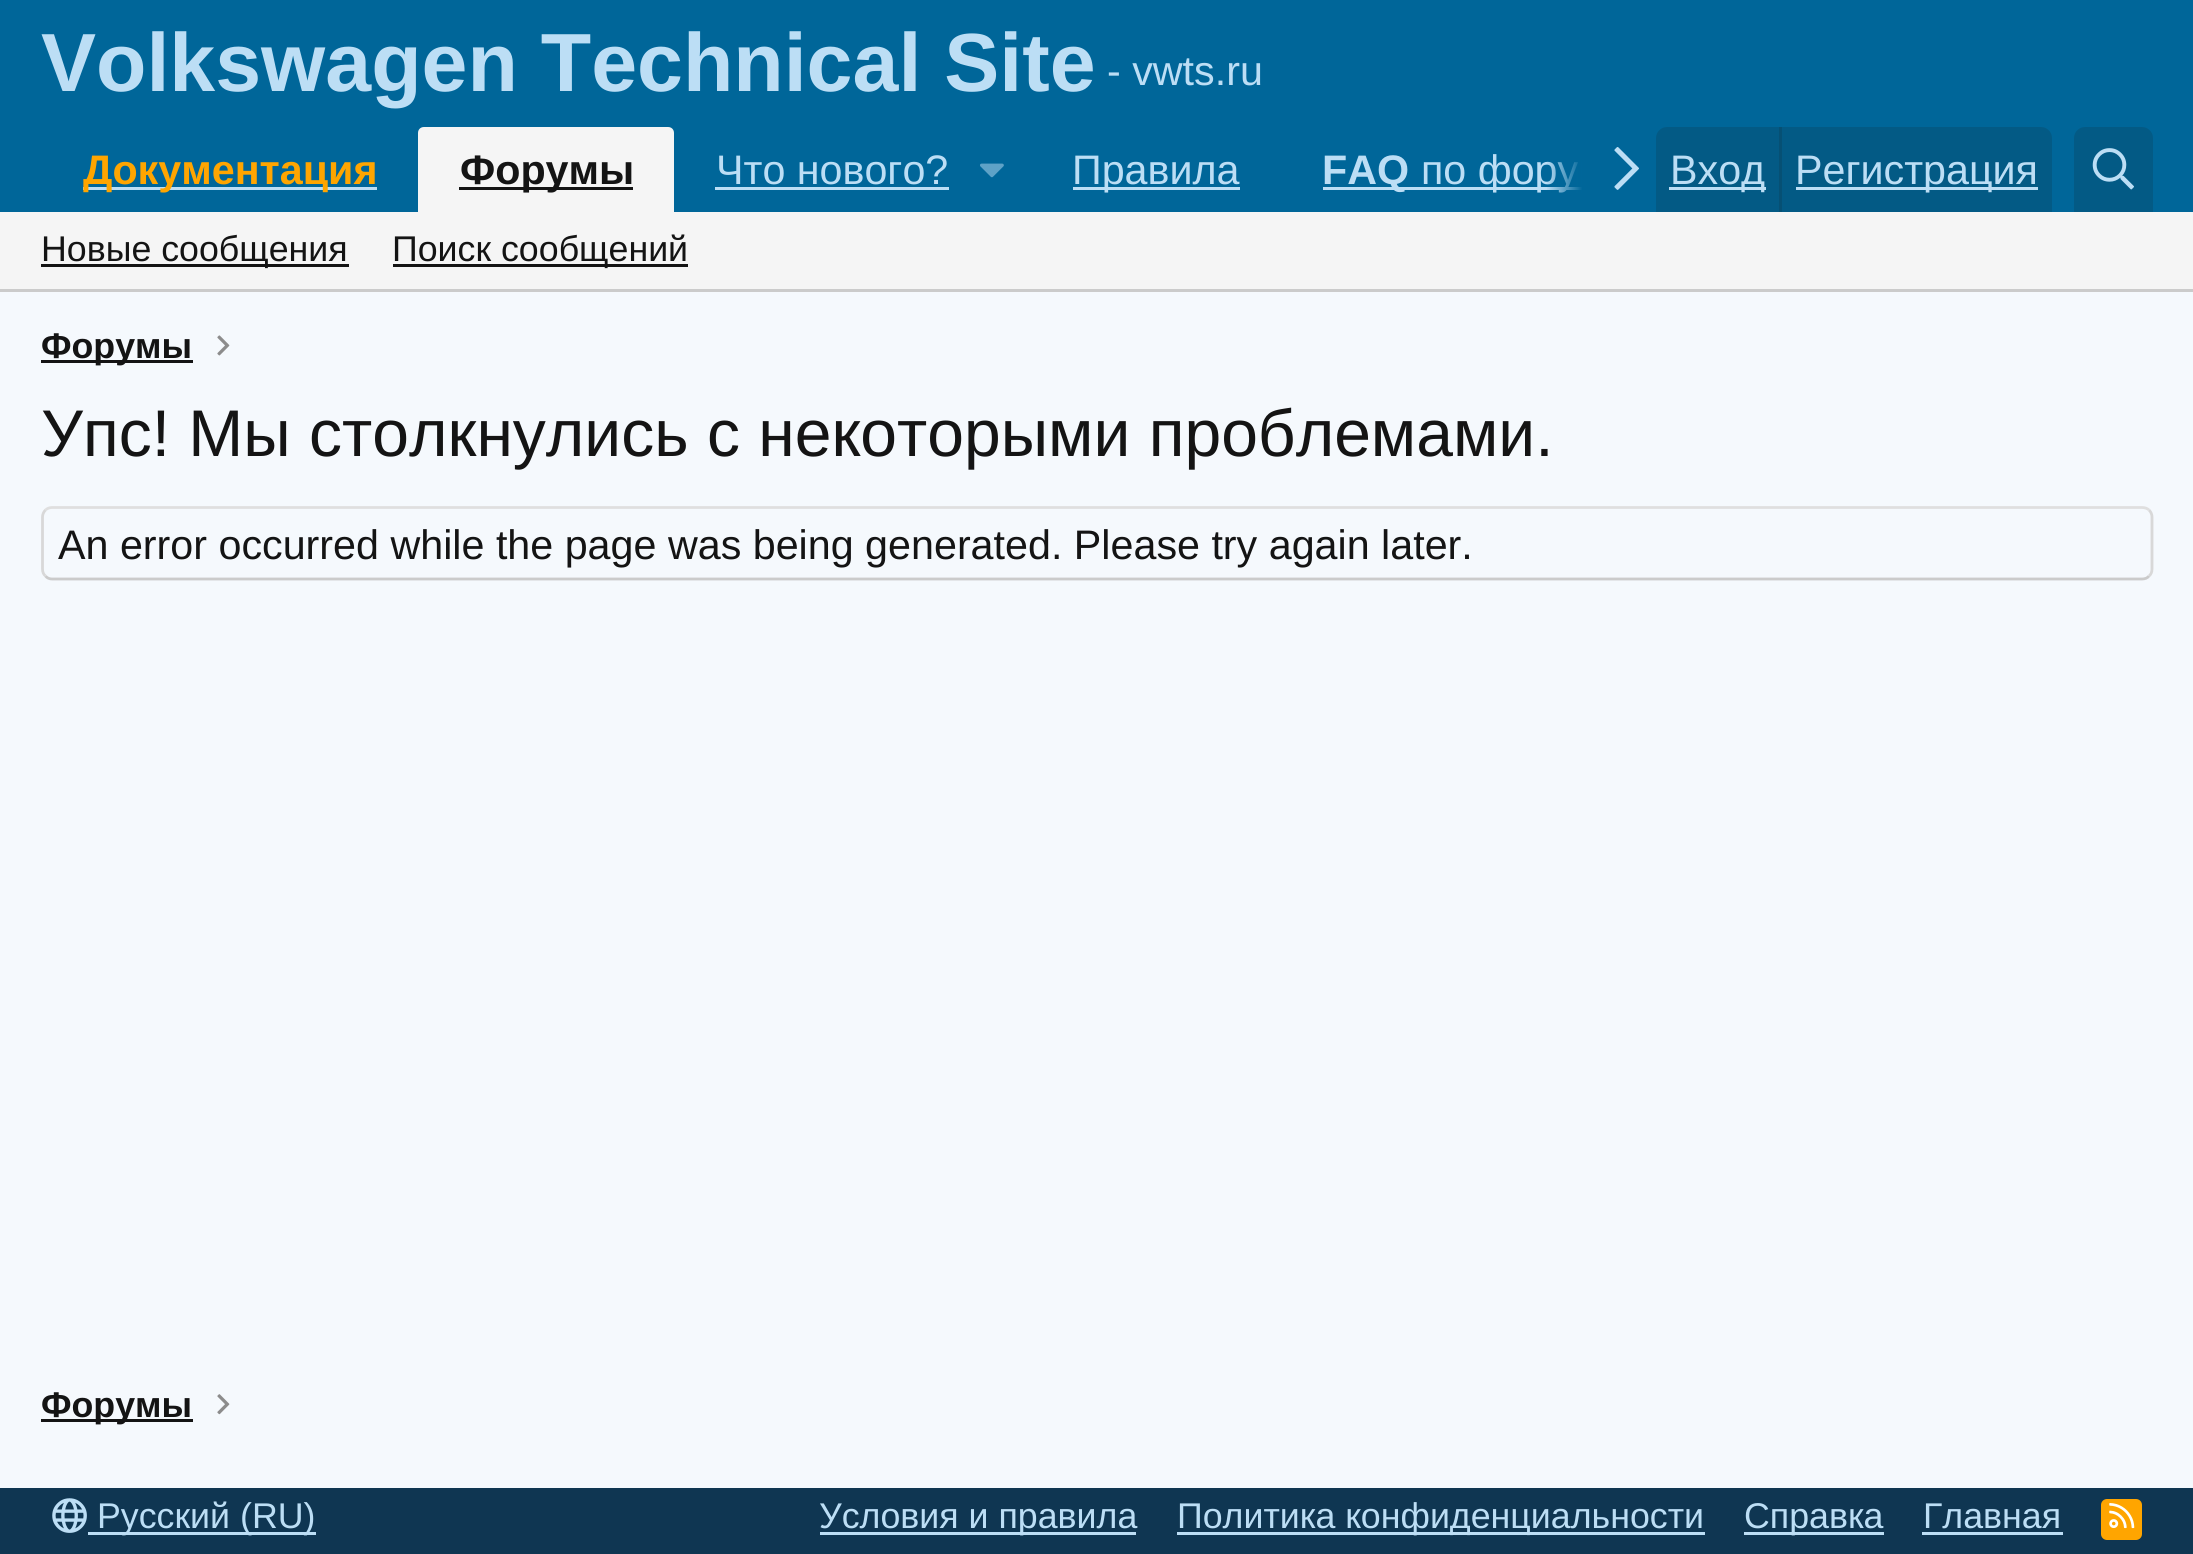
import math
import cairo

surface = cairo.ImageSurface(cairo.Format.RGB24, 2193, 1554)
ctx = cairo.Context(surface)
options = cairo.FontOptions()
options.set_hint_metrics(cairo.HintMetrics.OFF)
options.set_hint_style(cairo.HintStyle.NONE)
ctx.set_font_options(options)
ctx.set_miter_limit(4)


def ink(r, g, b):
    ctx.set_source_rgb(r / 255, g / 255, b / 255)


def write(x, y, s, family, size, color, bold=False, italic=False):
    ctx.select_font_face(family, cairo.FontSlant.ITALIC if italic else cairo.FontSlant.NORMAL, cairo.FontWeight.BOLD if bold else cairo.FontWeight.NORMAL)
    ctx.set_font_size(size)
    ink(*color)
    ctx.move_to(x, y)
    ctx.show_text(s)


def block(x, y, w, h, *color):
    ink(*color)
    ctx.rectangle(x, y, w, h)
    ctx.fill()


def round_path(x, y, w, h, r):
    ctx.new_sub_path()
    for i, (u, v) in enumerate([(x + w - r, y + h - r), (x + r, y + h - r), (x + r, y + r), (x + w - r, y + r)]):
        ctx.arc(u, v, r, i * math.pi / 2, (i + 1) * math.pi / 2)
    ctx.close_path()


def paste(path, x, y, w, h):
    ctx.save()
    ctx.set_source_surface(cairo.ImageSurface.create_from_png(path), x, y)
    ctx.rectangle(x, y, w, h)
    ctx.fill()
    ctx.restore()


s1 = dict(family="Liberation Sans", size=82.5, color=(188, 222, 245), bold=True)
s2 = dict(family="Liberation Sans", size=41.25, color=(188, 222, 245))
s3 = dict(family="Liberation Sans", size=41.25, color=(255, 165, 0), bold=True)
s4 = dict(family="Liberation Sans", size=41.25, color=(20, 20, 20), bold=True)
s5 = dict(family="Liberation Sans", size=41.25, color=(188, 222, 245), bold=True)
s6 = dict(family="Liberation Sans", size=35.75, color=(20, 20, 20))
s7 = dict(family="Liberation Sans", size=35.75, color=(20, 20, 20), bold=True)
s8 = dict(family="Liberation Sans", size=66, color=(20, 20, 20))
s9 = dict(family="Liberation Sans", size=41.25, color=(20, 20, 20))
s10 = dict(family="Liberation Sans", size=35.75, color=(188, 222, 245))

ink(245, 249, 253)
ctx.paint()
block(0, 0, 2193, 212, 0, 102, 153)
write(41, 91, "Volkswagen Technical Site", **s1)
write(1107, 85, "- vwts.ru", **s2)
block(83, 187, 294, 3, 188, 222, 245)
write(83, 184, "Документация", **s3)
ink(245, 245, 245)
ctx.new_path()
ctx.move_to(424, 127)
ctx.line_to(668, 127)
ctx.curve_to(671.5, 127, 674, 129.5, 674, 133)
ctx.line_to(674, 212)
ctx.line_to(418, 212)
ctx.line_to(418, 133)
ctx.curve_to(418, 129.5, 420.5, 127, 424, 127)
ctx.close_path()
ctx.fill()
block(459, 187, 174, 3, 20, 20, 20)
write(460, 184, "Форумы", **s4)
write(716, 184, "Что нового?", **s2)
block(715, 187, 234, 3, 188, 222, 245)
paste("pic1.png", 980, 163, 24, 15)
block(1073, 187, 167, 3, 188, 222, 245)
write(1072, 184, "Правила", **s2)
block(1323, 187, 259, 3, 188, 222, 245)
write(1322, 184, "FAQ", **s5)
write(1421, 184, "по фору", **s2)
gradient = cairo.LinearGradient(1546, 169, 1656, 169)
gradient.add_color_stop_rgba(0, 0, 0.4, 0.6, 0)
gradient.add_color_stop_rgba(0.33, 0, 0.4, 0.6, 1)
ctx.set_source(gradient)
ctx.rectangle(1547, 162, 35, 31)
ctx.fill()
paste("pic2.png", 1614, 147, 25, 43)
ink(3, 90, 133)
ctx.new_path()
ctx.move_to(1667, 127)
ctx.line_to(2041, 127)
ctx.curve_to(2047, 127, 2052, 132, 2052, 138)
ctx.line_to(2052, 212)
ctx.line_to(1656, 212)
ctx.line_to(1656, 138)
ctx.curve_to(1656, 132, 1661, 127, 1667, 127)
ctx.close_path()
ctx.fill()
block(1669, 187, 97, 3, 188, 222, 245)
write(1670, 184, "Вход", **s2)
block(1779, 127, 3, 85, 6, 80, 116)
block(1796, 187, 242, 3, 188, 222, 245)
write(1795, 184, "Регистрация", **s2)
ink(3, 90, 133)
ctx.new_path()
ctx.move_to(2085, 127)
ctx.line_to(2142, 127)
ctx.curve_to(2148, 127, 2153, 132, 2153, 138)
ctx.line_to(2153, 212)
ctx.line_to(2074, 212)
ctx.line_to(2074, 138)
ctx.curve_to(2074, 132, 2079, 127, 2085, 127)
ctx.close_path()
ctx.fill()
paste("pic3.png", 2092, 148, 42, 42)
block(0, 212, 2193, 77, 245, 245, 245)
block(0, 289, 2193, 3, 203, 203, 203)
block(41, 264, 308, 3, 20, 20, 20)
write(41, 261, "Новые сообщения", **s6)
block(393, 264, 295, 3, 20, 20, 20)
write(392, 261, "Поиск сообщений", **s6)
block(41, 360, 152, 3, 20, 20, 20)
write(41, 358, "Форумы", **s7)
paste("pic4.png", 217, 335, 13, 21)
write(41, 456, "Упс! Мы столкнулись с некоторыми проблемами.", **s8)
ctx.new_path()
ctx.move_to(45.5, 510)
ctx.curve_to(47, 508.5, 49.5, 507.5, 52, 507.5)
ctx.line_to(2142, 507.5)
ctx.curve_to(2145, 507.5, 2147.5, 508.5, 2149, 510)
ink(223, 223, 223)
ctx.set_line_width(2.8)
ctx.stroke()
ctx.new_path()
ctx.move_to(2149, 510)
ctx.curve_to(2151, 512, 2152, 514.5, 2152, 517)
ctx.line_to(2152, 569)
ctx.curve_to(2152, 572, 2151, 574.5, 2149, 576)
ink(216, 216, 216)
ctx.stroke()
ctx.new_path()
ctx.move_to(2149, 576)
ctx.curve_to(2147.5, 578, 2145, 579, 2142, 579)
ctx.line_to(52, 579)
ctx.curve_to(49.5, 579, 47, 578, 45.5, 576)
ink(203, 203, 203)
ctx.stroke()
ctx.new_path()
ctx.move_to(45.5, 576)
ctx.curve_to(43.5, 574.5, 42.5, 572, 42.5, 569)
ctx.line_to(42.5, 517)
ctx.curve_to(42.5, 514.5, 43.5, 512, 45.5, 510)
ink(216, 216, 216)
ctx.stroke()
write(58, 559, "An error occurred while the page was being generated. Please try again later.", **s9)
block(41, 1419, 152, 3, 20, 20, 20)
write(41, 1417, "Форумы", **s7)
paste("pic5.png", 217, 1394, 13, 21)
block(0, 1488, 2193, 66, 15, 54, 82)
paste("pic6.png", 52, 1498, 35, 35)
block(88, 1532, 228, 3, 188, 222, 245)
write(97, 1528, "Русский (RU)", **s10)
block(820, 1532, 316, 3, 188, 222, 245)
write(819, 1528, "Условия и правила", **s10)
block(1177, 1532, 528, 3, 188, 222, 245)
write(1177, 1528, "Политика конфиденциальности", **s10)
block(1744, 1532, 140, 3, 188, 222, 245)
write(1744, 1528, "Справка", **s10)
write(1923, 1528, "Главная", **s10)
block(1922, 1532, 141, 3, 188, 222, 245)
ink(255, 165, 0)
round_path(2101, 1499, 41, 41, 6)
ctx.fill()
paste("pic7.png", 2109, 1503, 26, 26)
surface.write_to_png("screenshot.png")
